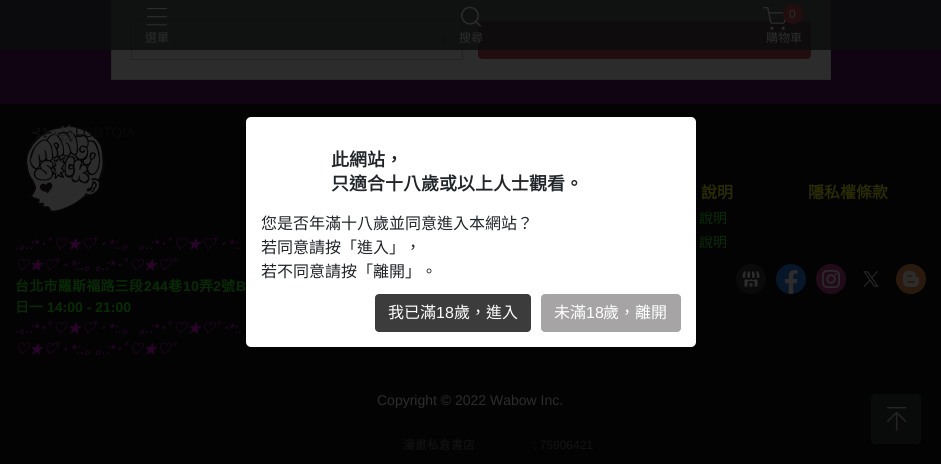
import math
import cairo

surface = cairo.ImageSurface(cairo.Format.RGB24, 941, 464)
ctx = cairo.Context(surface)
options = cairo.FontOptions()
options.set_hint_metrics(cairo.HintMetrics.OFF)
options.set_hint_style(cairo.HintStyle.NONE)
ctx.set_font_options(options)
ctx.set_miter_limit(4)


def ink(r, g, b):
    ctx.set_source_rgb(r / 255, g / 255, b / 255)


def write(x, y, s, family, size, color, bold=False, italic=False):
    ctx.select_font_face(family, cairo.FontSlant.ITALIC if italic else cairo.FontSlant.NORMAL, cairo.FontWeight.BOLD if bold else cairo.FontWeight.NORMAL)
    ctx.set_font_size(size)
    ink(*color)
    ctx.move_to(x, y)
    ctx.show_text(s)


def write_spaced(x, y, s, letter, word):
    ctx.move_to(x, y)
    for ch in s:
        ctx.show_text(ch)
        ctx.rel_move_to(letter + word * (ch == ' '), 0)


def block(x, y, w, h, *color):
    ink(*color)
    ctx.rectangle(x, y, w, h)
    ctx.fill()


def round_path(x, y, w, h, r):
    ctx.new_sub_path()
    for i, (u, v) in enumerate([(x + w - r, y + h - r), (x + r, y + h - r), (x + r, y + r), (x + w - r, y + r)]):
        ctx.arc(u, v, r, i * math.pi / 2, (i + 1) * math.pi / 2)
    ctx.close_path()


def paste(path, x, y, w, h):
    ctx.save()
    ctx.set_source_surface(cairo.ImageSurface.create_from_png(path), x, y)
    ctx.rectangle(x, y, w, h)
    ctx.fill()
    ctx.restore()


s1 = dict(family="Noto Sans CJK TC", size=12, color=(44, 44, 44))
s2 = dict(family="DejaVu Sans", size=14, color=(14, 14, 14))
s3 = dict(family="Noto Sans Javanese", size=14, color=(34, 33, 33))
s4 = dict(family="Liberation Sans", size=14, color=(9, 8, 9))
s5 = dict(family="Noto Sans CJK TC", size=16, color=(43, 44, 3), bold=True)
s6 = dict(family="Noto Sans CJK TC", size=14, color=(7, 44, 3))
s7 = dict(family="Liberation Sans", size=14, color=(42, 3, 43), italic=True)
s8 = dict(family="Noto Sans CJK TC", size=14, color=(42, 3, 43), italic=True)
s9 = dict(family="Noto Sans CJK TC", size=14, color=(7, 44, 3), bold=True)
s10 = dict(family="Liberation Sans", size=14, color=(7, 44, 3), bold=True)
s11 = dict(family="Liberation Sans", size=14, color=(42, 3, 43))
s12 = dict(family="Liberation Sans", size=14, color=(44, 44, 44))
s13 = dict(family="Noto Sans CJK TC", size=12, color=(19, 19, 20))
s14 = dict(family="Liberation Sans", size=12, color=(19, 19, 20))
s15 = dict(family="Noto Sans CJK TC", size=18, color=(33, 37, 41), bold=True)
s16 = dict(family="Noto Sans CJK TC", size=16, color=(33, 37, 41))
s17 = dict(family="Noto Sans CJK TC", size=16, color=(255, 255, 255))
s18 = dict(family="Liberation Sans", size=16, color=(255, 255, 255))

ink(16, 4, 18)
ctx.paint()
ink(44, 44, 44)
ctx.rectangle(111.5, -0.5, 719, 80)
ctx.fill_preserve()
ink(40, 40, 40)
ctx.set_line_width(1)
ctx.stroke()
ctx.rectangle(131.5, 20.5, 331, 39)
ink(35, 35, 35)
ctx.stroke()
paste("pic1.png", 145, 39, 12, 2)
paste("pic2.png", 437, 34, 12, 12)
ink(34, 14, 14)
round_path(478.5, 21.5, 332, 37, 3.5)
ctx.fill_preserve()
ctx.stroke()
ctx.set_source_rgba(0.043, 0.047, 0.047, 0.85)
ctx.rectangle(0, 0, 941, 50)
ctx.fill()
paste("pic3.png", 763, 7, 23, 23)
ink(34, 14, 14)
ctx.arc(793, 14, 10, 0, 2 * math.pi)
ctx.fill()
ctx.select_font_face("Liberation Sans")
ctx.set_font_size(12)
ink(44, 44, 44)
write_spaced(789, 18, "0", 1, 0)
write(766, 42, "購物車", **s1)
paste("pic4.png", 461, 6, 20, 21)
write(459, 42, "搜尋", **s1)
block(0, 104, 941, 360, 3, 3, 4)
paste("pic11.png", 15, 119, 100, 100)
write(30, 137, "⊰⊱", **s2)
write(53, 137, "꧁", **s3)
write(75, 137, "LGBTQIA", **s4)
paste("pic5.png", 147, 8, 20, 18)
write(145, 42, "選單", **s1)
write(701, 198, "說明", **s5)
write(699, 223, "說明", **s6)
write(699, 247, "說明", **s6)
write(808, 198, "隱私權條款", **s5)
paste("pic6.png", 736, 264, 30, 30)
paste("pic7.png", 776, 264, 30, 30)
paste("pic8.png", 816, 264, 30, 30)
paste("pic9.png", 856, 264, 30, 30)
paste("pic10.png", 896, 264, 30, 30)
write(15, 249, ".", **s7)
write(19, 249, "｡", **s8)
write(26, 249, ".:*", **s7)
write(39, 249, "･ﾟ♡★♡", **s8)
write(92, 249, "ﾟ･", **s8)
write(109, 249, "*:.", **s7)
ctx.select_font_face("Noto Sans CJK TC", cairo.FontSlant.ITALIC)
write_spaced(122, 249, "｡ ｡", 0, 6)
write(146, 249, ".:*", **s7)
write(159, 249, "･ﾟ♡★♡", **s8)
write(212, 249, "ﾟ･", **s8)
write(229, 249, "*:.", **s7)
write(15, 270, "♡★♡", **s8)
write(54, 270, "ﾟ･", **s8)
write(71, 270, "*:.", **s7)
ctx.select_font_face("Noto Sans CJK TC", cairo.FontSlant.ITALIC)
write_spaced(84, 270, "｡ ｡", 0, 1)
write(102, 270, ".:*", **s7)
write(115, 270, "･ﾟ♡★♡ﾟ", **s8)
ctx.select_font_face("Noto Sans CJK TC", cairo.FontSlant.NORMAL, cairo.FontWeight.BOLD)
ink(7, 44, 3)
write_spaced(15, 291, "台北市羅斯福路三段", 0.25, 0)
ctx.select_font_face("Liberation Sans", cairo.FontSlant.NORMAL, cairo.FontWeight.BOLD)
write_spaced(144, 291, "244", 0.25, 0)
ctx.select_font_face("Noto Sans CJK TC", cairo.FontSlant.NORMAL, cairo.FontWeight.BOLD)
write_spaced(168, 291, "巷", 0.25, 0)
ctx.select_font_face("Liberation Sans", cairo.FontSlant.NORMAL, cairo.FontWeight.BOLD)
write_spaced(183, 291, "10", 0.25, 0)
ctx.select_font_face("Noto Sans CJK TC", cairo.FontSlant.NORMAL, cairo.FontWeight.BOLD)
write_spaced(199, 291, "弄", 0.25, 0)
ctx.select_font_face("Liberation Sans", cairo.FontSlant.NORMAL, cairo.FontWeight.BOLD)
write_spaced(213, 291, "2", 0.25, 0)
ctx.select_font_face("Noto Sans CJK TC", cairo.FontSlant.NORMAL, cairo.FontWeight.BOLD)
write_spaced(221, 291, "號", 0.25, 0)
ctx.select_font_face("Liberation Sans", cairo.FontSlant.NORMAL, cairo.FontWeight.BOLD)
write_spaced(236, 291, "B", 0.25, 0)
write(15, 312, "日一", **s9)
write(47, 312, "14:00 - 21:00", **s10)
write(15, 333, ".", **s11)
write(19, 333, "｡", **s8)
write(26, 333, ".:*", **s7)
write(39, 333, "･ﾟ♡★♡", **s8)
write(92, 333, "ﾟ･", **s8)
write(109, 333, "*:.", **s7)
ctx.select_font_face("Noto Sans CJK TC", cairo.FontSlant.ITALIC)
write_spaced(122, 333, "｡ ｡", 0, 7)
write(146, 333, ".:*", **s7)
write(159, 333, "･ﾟ♡★♡ﾟ･", **s8)
write(229, 333, "*:.", **s7)
write(15, 354, "♡★♡", **s8)
write(54, 354, "ﾟ･", **s8)
write(71, 354, "*:.", **s7)
ctx.select_font_face("Noto Sans CJK TC", cairo.FontSlant.ITALIC)
write_spaced(84, 354, "｡ ｡", 0, 1)
write(102, 354, ".:*", **s7)
write(115, 354, "･ﾟ♡★♡ﾟ", **s8)
write(377, 405, "Copyright © 2022 Wabow Inc.", **s12)
write(403, 449, "漫畫私倉書店", **s13)
write(533, 449, ": 75906421", **s14)
ink(9, 10, 10)
round_path(871, 394, 50, 50, 4)
ctx.fill()
paste("pic12.png", 887, 407, 20, 24)
ink(255, 255, 255)
round_path(246, 117, 450, 230, 5)
ctx.fill()
write(331, 166, "此網站，", **s15)
write(331, 190, "只適合十八歲或以上人士觀看。", **s15)
write(261, 229, "您是否年滿十八歲並同意進入本網站？", **s16)
write(261, 253, "若同意請按「進入」，", **s16)
write(261, 277, "若不同意請按「離開」。", **s16)
ink(60, 60, 60)
round_path(375.5, 294.5, 155, 37, 3.5)
ctx.fill_preserve()
ctx.stroke()
write(388, 318, "我已滿", **s17)
write(436, 318, "18", **s18)
write(454, 318, "歲，進入", **s17)
ink(166, 164, 164)
round_path(541.5, 294.5, 139, 37, 3.5)
ctx.fill_preserve()
ctx.stroke()
write(554, 318, "未滿", **s17)
write(586, 318, "18", **s18)
write(603, 318, "歲，離開", **s17)
surface.write_to_png("screenshot.png")
